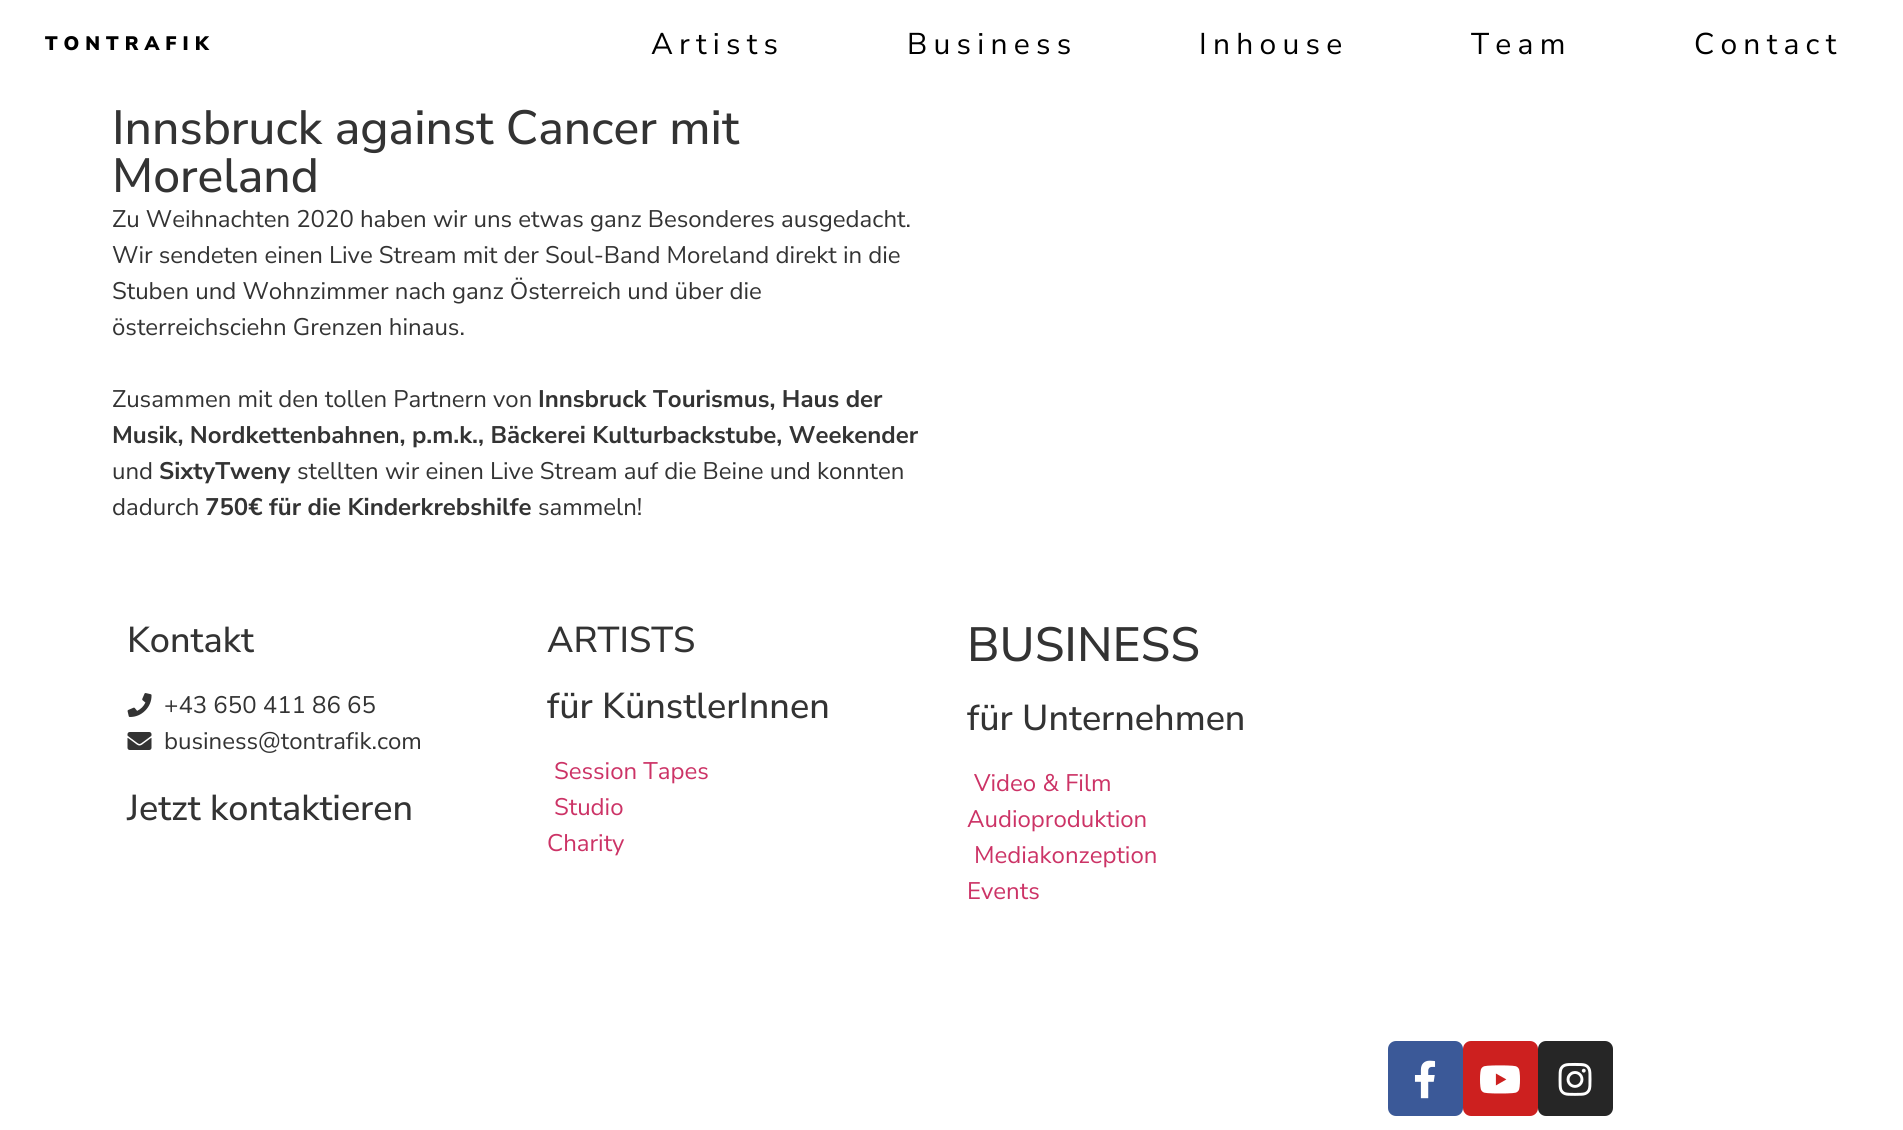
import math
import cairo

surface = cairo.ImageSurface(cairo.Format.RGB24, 1903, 1130)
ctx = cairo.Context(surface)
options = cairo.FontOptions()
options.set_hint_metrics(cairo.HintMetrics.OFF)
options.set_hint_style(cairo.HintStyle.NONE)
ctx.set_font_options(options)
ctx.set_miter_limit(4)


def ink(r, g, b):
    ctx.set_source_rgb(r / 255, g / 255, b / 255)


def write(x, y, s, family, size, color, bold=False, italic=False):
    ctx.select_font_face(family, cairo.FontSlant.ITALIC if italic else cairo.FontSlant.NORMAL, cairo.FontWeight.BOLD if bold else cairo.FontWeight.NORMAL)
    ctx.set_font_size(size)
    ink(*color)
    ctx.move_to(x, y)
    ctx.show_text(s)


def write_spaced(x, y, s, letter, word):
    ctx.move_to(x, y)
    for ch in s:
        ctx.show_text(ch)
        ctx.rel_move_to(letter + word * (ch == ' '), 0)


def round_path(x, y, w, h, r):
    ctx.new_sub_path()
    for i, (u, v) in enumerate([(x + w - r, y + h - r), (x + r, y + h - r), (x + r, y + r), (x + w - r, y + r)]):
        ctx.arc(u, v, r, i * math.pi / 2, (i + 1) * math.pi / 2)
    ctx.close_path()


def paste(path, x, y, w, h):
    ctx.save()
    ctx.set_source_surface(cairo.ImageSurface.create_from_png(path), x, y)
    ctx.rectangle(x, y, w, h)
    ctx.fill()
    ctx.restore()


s1 = dict(family="Nunito Sans Medium", size=48, color=(51, 51, 51))
s2 = dict(family="Nunito Sans", size=24, color=(51, 51, 51))
s3 = dict(family="Nunito Sans", size=24, color=(51, 51, 51), bold=True)
s4 = dict(family="Nunito Sans Medium", size=36, color=(51, 51, 51))
s5 = dict(family="Nunito Sans", size=24, color=(204, 51, 102))

ink(255, 255, 255)
ctx.paint()
ctx.select_font_face("Nunito Sans Black")
ctx.set_font_size(19.5)
ink(0, 0, 0)
write_spaced(45, 50, "TONTRAFIK", 6, 0)
ctx.select_font_face("Nunito Sans")
ctx.set_font_size(30)
write_spaced(651, 54, "Artists", 6.25, 0)
write_spaced(907, 54, "Business", 6.25, 0)
write_spaced(1199, 54, "Inhouse", 6.25, 0)
write_spaced(1471, 54, "Team", 6.25, 0)
write_spaced(1694, 54, "Contact", 6.25, 0)
write(112, 144, "Innsbruck against Cancer mit", **s1)
write(112, 192, "Moreland", **s1)
write(112, 227, "Zu Weihnachten 2020 haben wir uns etwas ganz Besonderes ausgedacht.", **s2)
write(112, 263, "Wir sendeten einen Live Stream mit der Soul-Band Moreland direkt in die", **s2)
write(112, 299, "Stuben und Wohnzimmer nach ganz Österreich und über die", **s2)
write(112, 335, "österreichsciehn Grenzen hinaus.", **s2)
write(112, 407, "Zusammen mit den tollen Partnern von", **s2)
write(538, 407, "Innsbruck Tourismus, Haus der", **s3)
write(112, 443, "Musik, Nordkettenbahnen, p.m.k., Bäckerei Kulturbackstube, Weekender", **s3)
write(112, 479, "und", **s2)
write(159, 479, "SixtyTweny", **s3)
write(297, 479, "stellten wir einen Live Stream auf die Beine und konnten", **s2)
write(112, 515, "dadurch", **s2)
write(205, 515, "750€ für die Kinderkrebshilfe", **s3)
write(538, 515, "sammeln!", **s2)
write(127, 652, "Kontakt", **s4)
paste("pic1.png", 127, 693, 25, 24)
write(164, 713, "+43 650 411 86 65", **s2)
paste("pic2.png", 127, 732, 25, 18)
write(164, 749, "business@tontrafik.com", **s2)
write(127, 820, "Jetzt kontaktieren", **s4)
write(547, 652, "ARTISTS", **s4)
write(547, 718, "für KünstlerInnen", **s4)
write(554, 779, "Session Tapes", **s5)
write(554, 815, "Studio", **s5)
write(547, 851, "Charity", **s5)
write(967, 661, "BUSINESS", **s1)
write(967, 730, "für Unternehmen", **s4)
write(974, 791, "Video & Film", **s5)
write(967, 827, "Audioproduktion", **s5)
write(974, 863, "Mediakonzeption", **s5)
write(967, 899, "Events", **s5)
ink(59, 89, 152)
round_path(1388, 1041, 75, 75, 8)
ctx.fill()
paste("pic3.png", 1414, 1060, 22, 39)
ink(205, 32, 31)
round_path(1463, 1041, 75, 75, 8)
ctx.fill()
paste("pic4.png", 1480, 1065, 40, 29)
ink(38, 38, 38)
round_path(1538, 1041, 75, 75, 8)
ctx.fill()
paste("pic5.png", 1558, 1062, 34, 34)
surface.write_to_png("screenshot.png")
